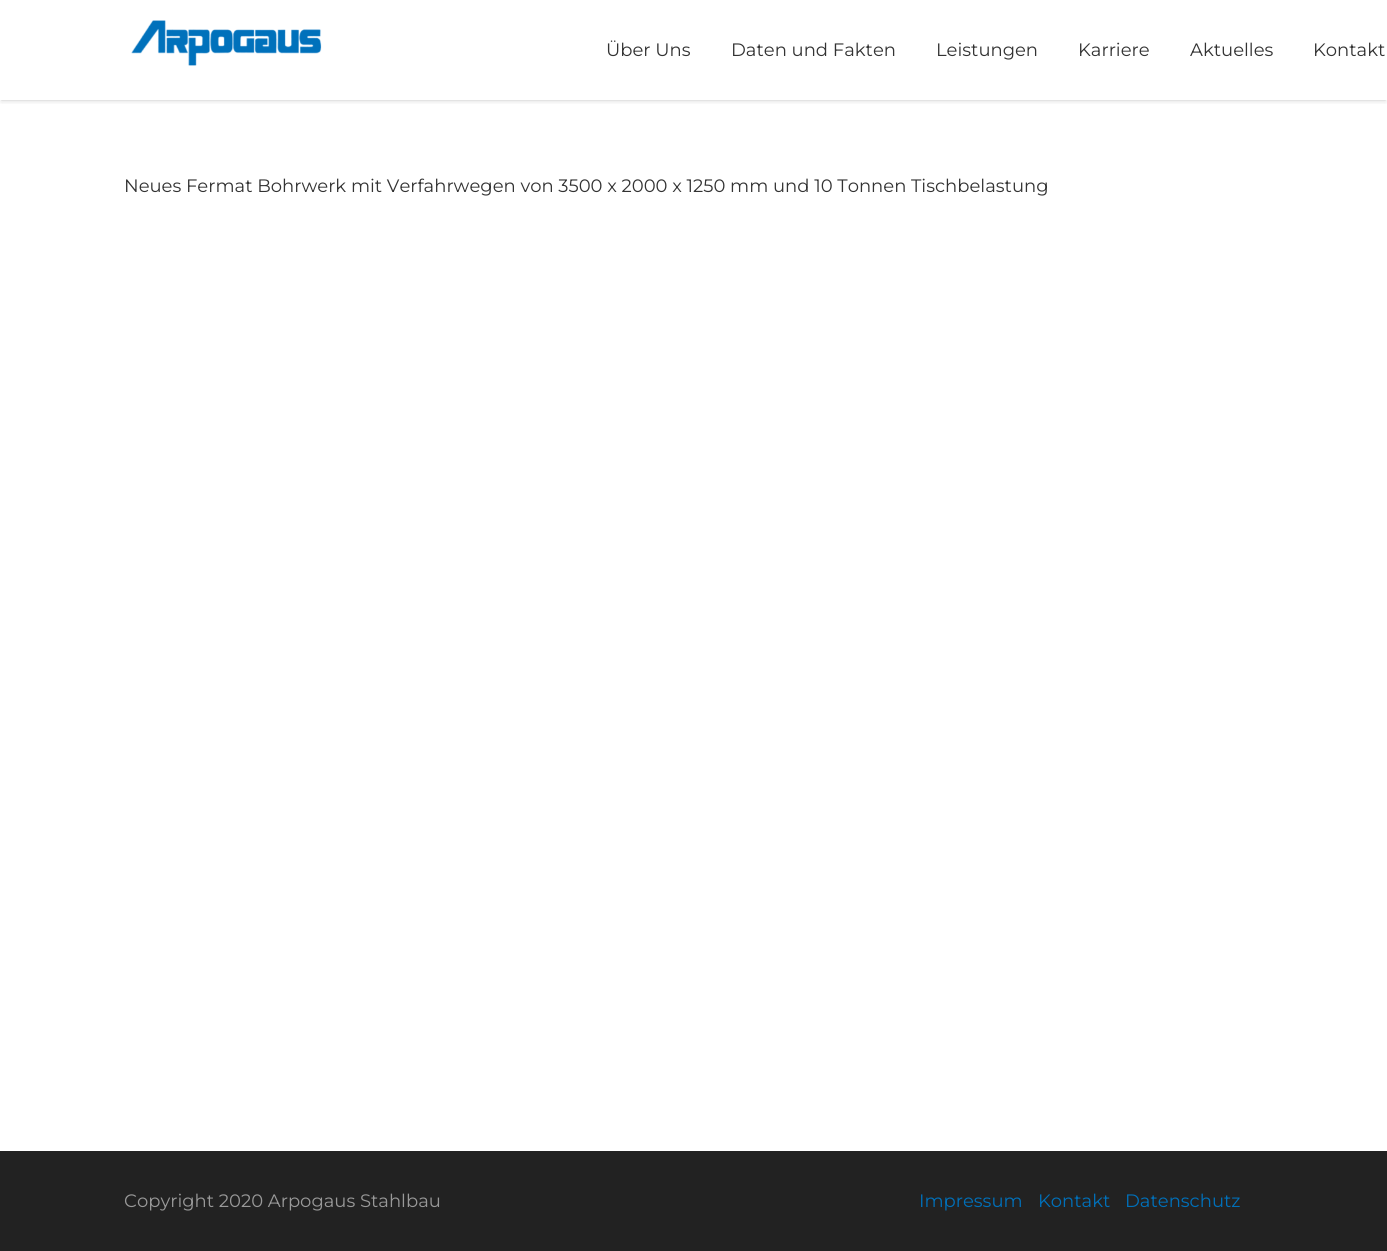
import math
import cairo

surface = cairo.ImageSurface(cairo.Format.RGB24, 1387, 1251)
ctx = cairo.Context(surface)
options = cairo.FontOptions()
options.set_hint_metrics(cairo.HintMetrics.OFF)
options.set_hint_style(cairo.HintStyle.NONE)
ctx.set_font_options(options)
ctx.set_miter_limit(4)


def ink(r, g, b):
    ctx.set_source_rgb(r / 255, g / 255, b / 255)


def write(x, y, s, family, size, color, bold=False, italic=False):
    ctx.select_font_face(family, cairo.FontSlant.ITALIC if italic else cairo.FontSlant.NORMAL, cairo.FontWeight.BOLD if bold else cairo.FontWeight.NORMAL)
    ctx.set_font_size(size)
    ink(*color)
    ctx.move_to(x, y)
    ctx.show_text(s)


def block(x, y, w, h, *color):
    ink(*color)
    ctx.rectangle(x, y, w, h)
    ctx.fill()


def round_path(x, y, w, h, r):
    ctx.new_sub_path()
    for i, (u, v) in enumerate([(x + w - r, y + h - r), (x + r, y + h - r), (x + r, y + r), (x + w - r, y + r)]):
        ctx.arc(u, v, r, i * math.pi / 2, (i + 1) * math.pi / 2)
    ctx.close_path()


def blur_box(x, y, w, h, r, blur, alpha):
    ctx.push_group_with_content(cairo.Content.ALPHA)
    ctx.set_operator(cairo.Operator.SOURCE)
    for i in range(15, -16, -2):
        e = blur * i / 6
        if min(w, h) + 2 * e > 0:
            ctx.set_source_rgba(0, 0, 0, alpha * math.erfc((i - 1) / 8.5) / 2)
            round_path(x - e, y - e, w + 2 * e, h + 2 * e, max(0, min(r + e + blur * .6, min(w, h) / 2 + e)))
            ctx.fill()
    ctx.mask(ctx.pop_group())


def paste(path, x, y, w, h):
    ctx.save()
    ctx.set_source_surface(cairo.ImageSurface.create_from_png(path), x, y)
    ctx.rectangle(x, y, w, h)
    ctx.fill()
    ctx.restore()


s1 = dict(family="Montserrat Thin", size=18, color=(51, 51, 51))
s2 = dict(family="Montserrat Thin", size=18, color=(153, 153, 153))
s3 = dict(family="Montserrat Thin", size=18, color=(0, 112, 186))

ink(255, 255, 255)
ctx.paint()
ctx.save()
ctx.rectangle(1, 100, 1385, 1)
ctx.clip()
ink(0, 0, 0)
blur_box(1, 3, 1385, 98, 0, 0.5, 0.05)
ctx.restore()
ctx.save()
ctx.rectangle(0, 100, 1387, 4)
ctx.clip()
ink(0, 0, 0)
blur_box(1, 4, 1385, 98, 0, 2.5, 0.1)
ctx.restore()
paste("pic1.png", 131, 20, 191, 46)
write(606, 56, "Über Uns", **s1)
write(731, 56, "Daten und Fakten", **s1)
write(936, 56, "Leistungen", **s1)
write(1078, 56, "Karriere", **s1)
write(1190, 56, "Aktuelles", **s1)
write(1313, 56, "Kontakt", **s1)
write(124, 192, "Neues Fermat Bohrwerk mit Verfahrwegen von 3500 x 2000 x 1250 mm und 10 Tonnen Tischbelastung", **s1)
block(0, 1151, 1387, 100, 34, 34, 34)
write(124, 1207, "Copyright 2020 Arpogaus Stahlbau", **s2)
write(919, 1207, "Impressum", **s3)
write(1038, 1207, "Kontakt", **s3)
write(1125, 1207, "Datenschutz", **s3)
surface.write_to_png("screenshot.png")
